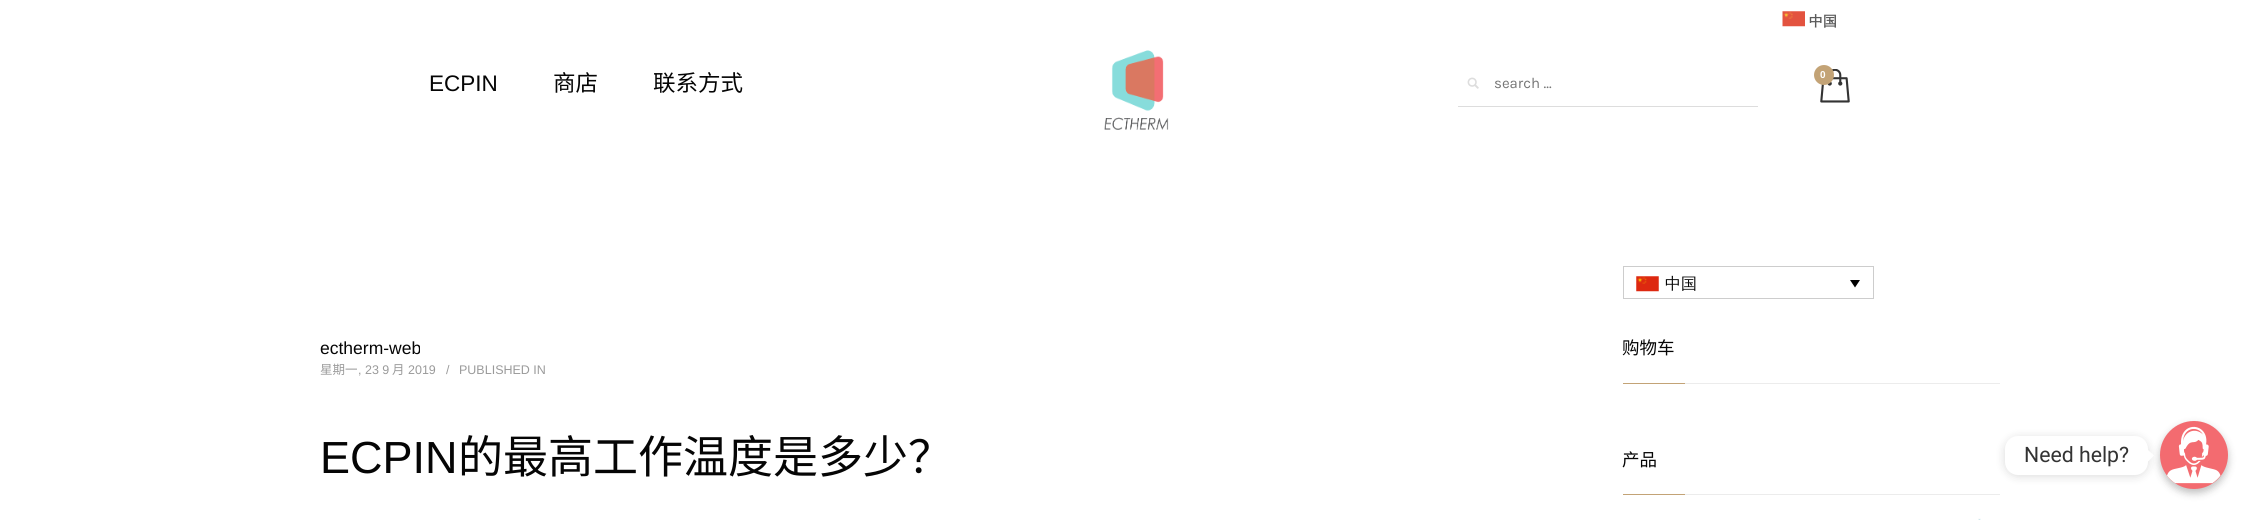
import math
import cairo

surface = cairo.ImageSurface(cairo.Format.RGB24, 2263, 520)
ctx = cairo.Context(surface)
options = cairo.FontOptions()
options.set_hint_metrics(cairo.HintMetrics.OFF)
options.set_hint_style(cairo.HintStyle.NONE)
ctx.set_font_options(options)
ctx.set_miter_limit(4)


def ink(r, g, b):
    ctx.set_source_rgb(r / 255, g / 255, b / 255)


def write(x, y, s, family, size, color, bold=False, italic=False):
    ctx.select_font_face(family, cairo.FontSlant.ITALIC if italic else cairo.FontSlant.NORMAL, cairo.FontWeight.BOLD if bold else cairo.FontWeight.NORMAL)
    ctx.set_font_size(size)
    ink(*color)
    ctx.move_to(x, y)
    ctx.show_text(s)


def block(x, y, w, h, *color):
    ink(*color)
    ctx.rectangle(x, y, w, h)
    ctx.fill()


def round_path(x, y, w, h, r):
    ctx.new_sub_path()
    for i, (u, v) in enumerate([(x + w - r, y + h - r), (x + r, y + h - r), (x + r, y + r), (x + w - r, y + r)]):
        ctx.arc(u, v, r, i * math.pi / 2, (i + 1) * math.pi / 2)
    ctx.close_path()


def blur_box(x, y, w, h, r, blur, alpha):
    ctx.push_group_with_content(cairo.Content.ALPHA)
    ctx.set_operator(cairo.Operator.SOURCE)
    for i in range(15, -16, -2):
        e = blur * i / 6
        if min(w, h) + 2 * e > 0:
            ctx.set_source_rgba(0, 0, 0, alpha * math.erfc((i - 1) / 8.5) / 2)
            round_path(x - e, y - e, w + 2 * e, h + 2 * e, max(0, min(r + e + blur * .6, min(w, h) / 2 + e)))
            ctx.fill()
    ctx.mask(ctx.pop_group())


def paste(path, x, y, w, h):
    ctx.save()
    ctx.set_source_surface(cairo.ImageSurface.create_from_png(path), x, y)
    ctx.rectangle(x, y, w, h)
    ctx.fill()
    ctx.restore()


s1 = dict(family="WenQuanYi Zen Hei", size=14, color=(92, 92, 92), bold=True)
s2 = dict(family="Liberation Sans", size=22.5, color=(5, 5, 5))
s3 = dict(family="Noto Sans CJK SC", size=22.5, color=(5, 5, 5))
s4 = dict(family="Liberation Sans", size=10, color=(255, 255, 255), bold=True)
s5 = dict(family="Karla", size=15, color=(117, 117, 117))
s6 = dict(family="Liberation Sans", size=17.5, color=(5, 5, 5))
s7 = dict(family="Noto Sans CJK SC", size=12.5, color=(154, 154, 154))
s8 = dict(family="Liberation Sans", size=12.5, color=(154, 154, 154))
s9 = dict(family="Liberation Sans", size=45, color=(5, 5, 5))
s10 = dict(family="Noto Sans CJK SC", size=45, color=(5, 5, 5))
s11 = dict(family="WenQuanYi Zen Hei Medium", size=16, color=(5, 5, 5))
s12 = dict(family="Noto Sans CJK SC", size=17.5, color=(5, 5, 5))
s13 = dict(family="Roboto", size=21.25, color=(51, 51, 51))

ink(255, 255, 255)
ctx.paint()
paste("pic1.png", 1782, 11, 23, 16)
write(1809, 26, "中国", **s1)
write(429, 91, "ECPIN", **s2)
write(553, 91, "商店", **s3)
write(653, 91, "联系方式", **s3)
paste("pic2.png", 1104, 50, 65, 80)
paste("pic3.png", 1820, 69, 30, 34)
ink(195, 163, 118)
ctx.arc(1824, 75, 10, 0, 2 * math.pi)
ctx.fill()
write(1820, 78, "0", **s4)
paste("pic4.png", 1467, 77, 12, 12)
block(1458, 106, 300, 1, 221, 221, 221)
write(1494, 88, "search ...", **s5)
write(320, 354, "ectherm-web", **s6)
write(320, 374, "星期一", **s7)
write(358, 374, ", 23 9", **s8)
write(392, 374, "月", **s7)
write(408, 374, "2019", **s8)
write(446, 374, "/", **s8)
write(459, 374, "PUBLISHED IN", **s8)
write(320, 473, "ECPIN", **s9)
write(458, 473, "的最高工作温度是多少？", **s10)
ctx.rectangle(1623.5, 266.5, 250, 32)
ink(205, 205, 205)
ctx.set_line_width(1)
ctx.stroke()
paste("pic5.png", 1636, 276, 23, 16)
write(1665, 289, "中国", **s11)
ink(0, 0, 0)
ctx.new_path()
ctx.move_to(1850, 280)
ctx.line_to(1860, 280)
ctx.line_to(1855, 287.5)
ctx.close_path()
ctx.fill()
write(1622, 354, "购物车", **s12)
block(1623, 383, 62, 1, 195, 163, 118)
block(1685, 383, 315, 1, 236, 236, 236)
write(1622, 466, "产品", **s12)
block(1623, 494, 62, 1, 195, 163, 118)
block(1685, 494, 315, 1, 236, 236, 236)
paste("pic6.png", 1978, 518, 3, 2)
ink(0, 0, 0)
blur_box(2160, 425, 68, 68, 34, 4, 0.25)
paste("pic7.png", 2160, 421, 68, 68)
blur_box(2005, 438, 143, 38, 13, 5, 0.15)
ink(255, 255, 255)
round_path(2005, 436, 143, 39, 13)
ctx.fill()
write(2024, 462, "Need help?", **s13)
ink(255, 255, 255)
ctx.new_path()
ctx.move_to(2147.5, 462)
ctx.line_to(2147.5, 449.5)
ctx.line_to(2154, 455.5)
ctx.close_path()
ctx.fill()
surface.write_to_png("screenshot.png")
